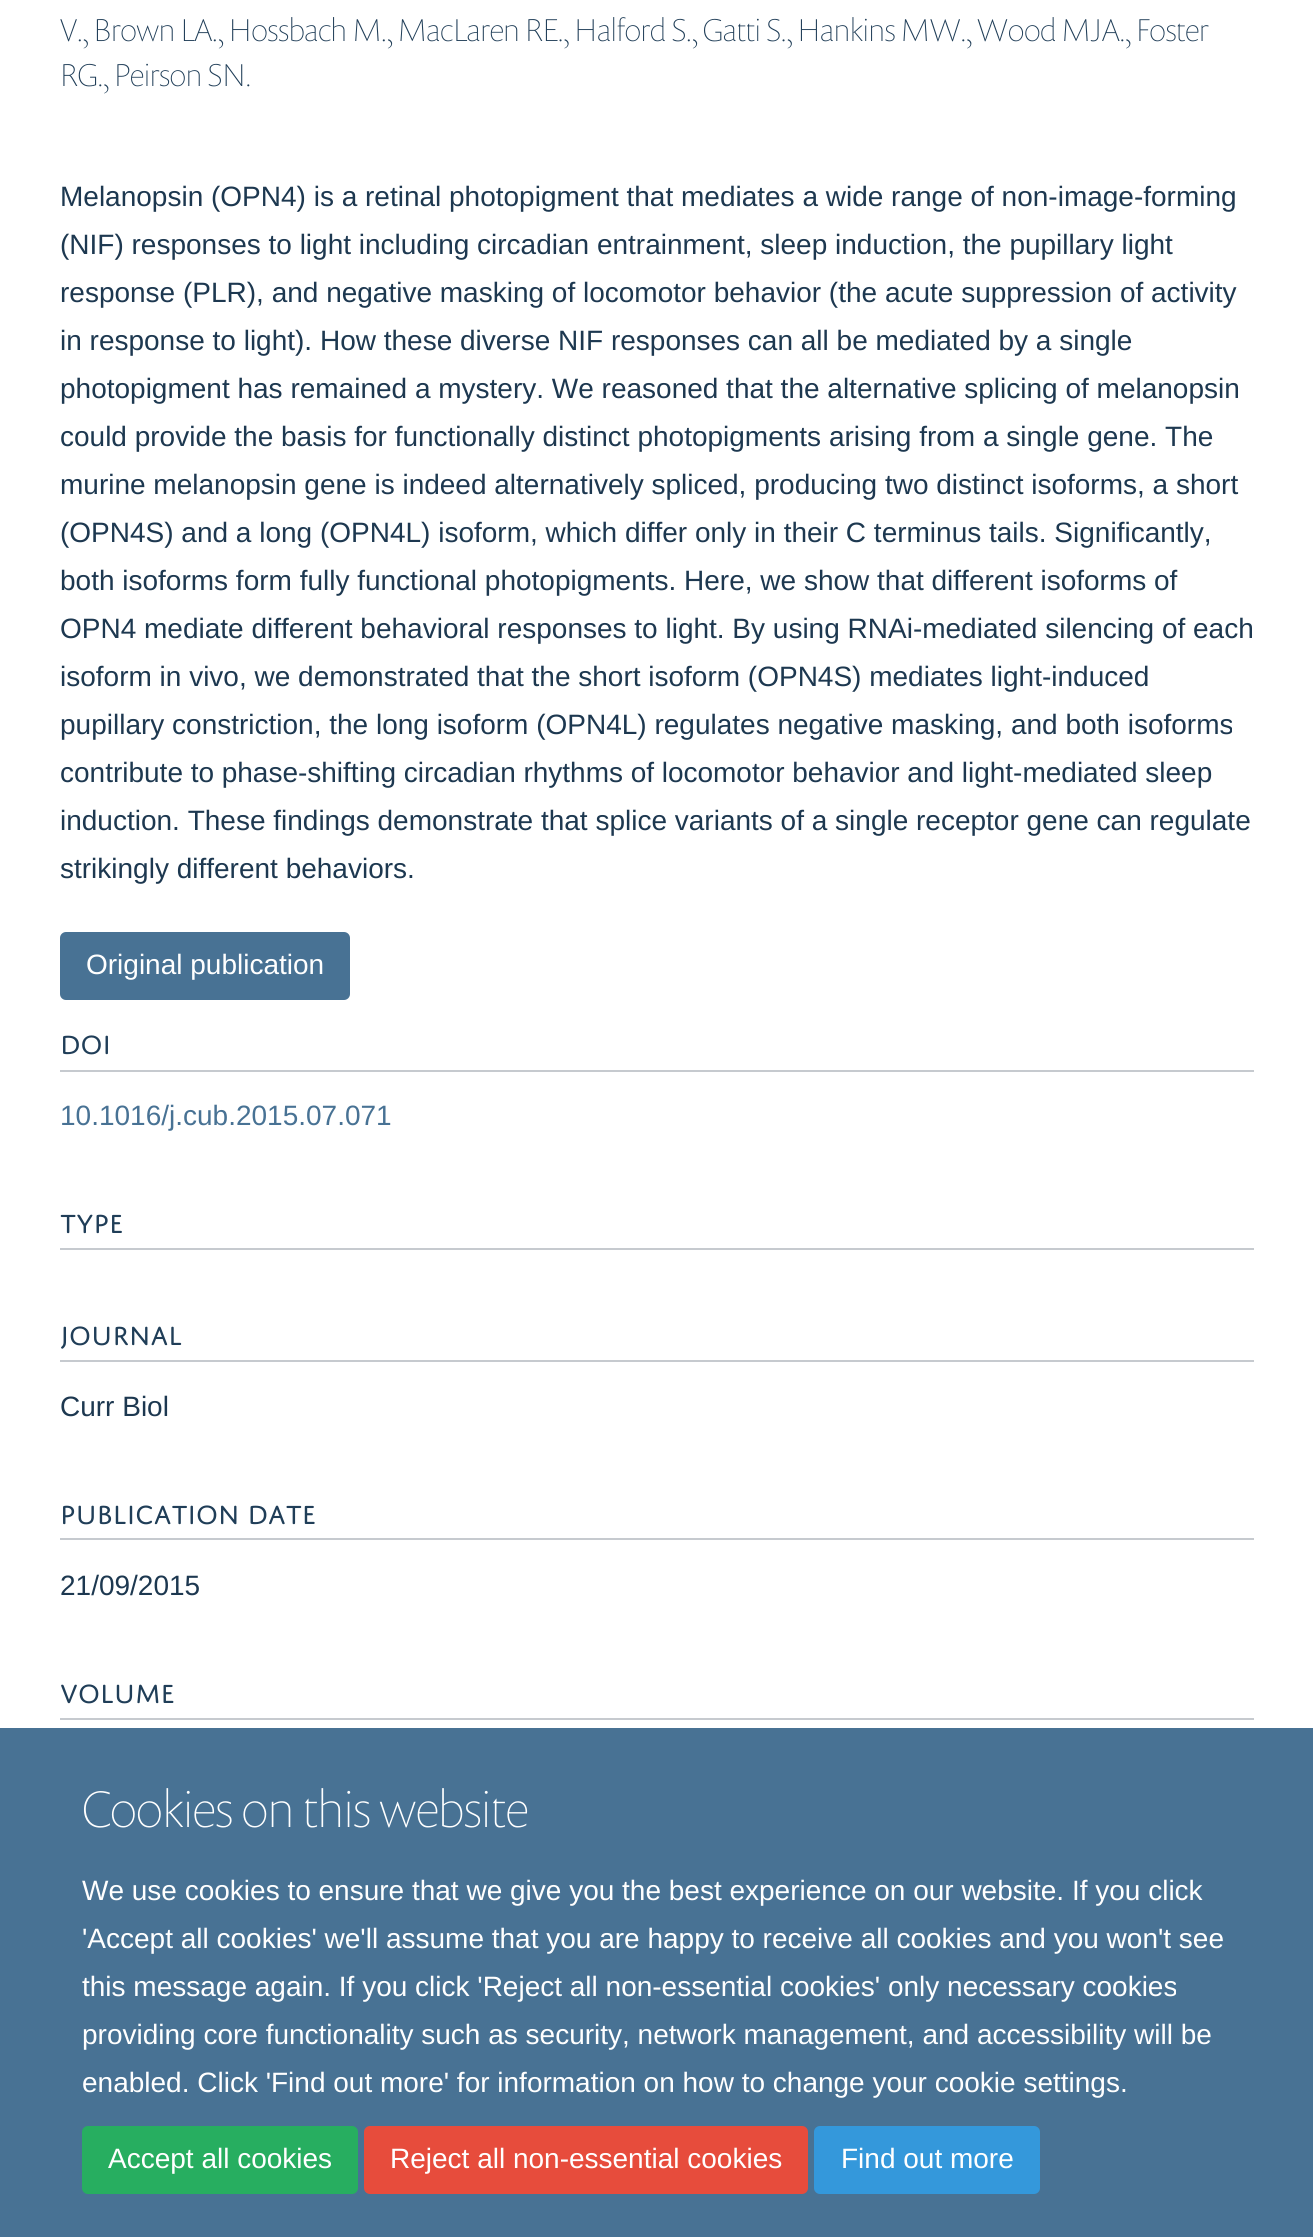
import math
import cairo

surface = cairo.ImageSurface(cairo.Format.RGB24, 1313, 2237)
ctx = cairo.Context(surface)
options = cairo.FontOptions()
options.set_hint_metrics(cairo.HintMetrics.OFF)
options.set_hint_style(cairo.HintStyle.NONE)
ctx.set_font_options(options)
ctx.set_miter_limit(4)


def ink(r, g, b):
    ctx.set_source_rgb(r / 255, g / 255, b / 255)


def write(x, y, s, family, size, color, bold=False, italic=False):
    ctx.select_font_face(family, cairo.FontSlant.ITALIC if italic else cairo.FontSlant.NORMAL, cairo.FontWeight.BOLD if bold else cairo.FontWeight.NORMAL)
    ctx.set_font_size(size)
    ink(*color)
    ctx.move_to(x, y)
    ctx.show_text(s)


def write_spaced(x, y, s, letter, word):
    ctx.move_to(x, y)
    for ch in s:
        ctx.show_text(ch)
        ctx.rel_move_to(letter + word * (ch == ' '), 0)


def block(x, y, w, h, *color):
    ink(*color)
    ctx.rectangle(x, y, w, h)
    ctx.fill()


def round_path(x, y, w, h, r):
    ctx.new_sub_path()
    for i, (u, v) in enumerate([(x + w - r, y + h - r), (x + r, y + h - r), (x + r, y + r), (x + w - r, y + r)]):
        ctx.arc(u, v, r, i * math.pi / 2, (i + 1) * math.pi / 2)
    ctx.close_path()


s1 = dict(family="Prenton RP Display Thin", size=32, color=(32, 62, 88))
s2 = dict(family="Liberation Sans", size=28, color=(29, 56, 80))
s3 = dict(family="Liberation Sans", size=28, color=(255, 255, 255))
s4 = dict(family="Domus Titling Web", size=28, color=(32, 62, 88))
s5 = dict(family="Liberation Sans", size=28, color=(72, 114, 148))
s6 = dict(family="Prenton RP Display Thin", size=52, color=(255, 255, 255))

ink(255, 255, 255)
ctx.paint()
write(60, 41, "V., Brown LA., Hossbach M., MacLaren RE., Halford S., Gatti S., Hankins MW., Wood MJA., Foster", **s1)
write(60, 86, "RG., Peirson SN.", **s1)
write(60, 206, "Melanopsin (OPN4) is a retinal photopigment that mediates a wide range of non-image-forming", **s2)
write(60, 254, "(NIF) responses to light including circadian entrainment, sleep induction, the pupillary light", **s2)
write(60, 302, "response (PLR), and negative masking of locomotor behavior (the acute suppression of activity", **s2)
write(60, 350, "in response to light). How these diverse NIF responses can all be mediated by a single", **s2)
write(60, 398, "photopigment has remained a mystery. We reasoned that the alternative splicing of melanopsin", **s2)
write(60, 446, "could provide the basis for functionally distinct photopigments arising from a single gene. The", **s2)
write(60, 494, "murine melanopsin gene is indeed alternatively spliced, producing two distinct isoforms, a short", **s2)
write(60, 542, "(OPN4S) and a long (OPN4L) isoform, which differ only in their C terminus tails. Significantly,", **s2)
write(60, 590, "both isoforms form fully functional photopigments. Here, we show that different isoforms of", **s2)
write(60, 638, "OPN4 mediate different behavioral responses to light. By using RNAi-mediated silencing of each", **s2)
write(60, 686, "isoform in vivo, we demonstrated that the short isoform (OPN4S) mediates light-induced", **s2)
write(60, 734, "pupillary constriction, the long isoform (OPN4L) regulates negative masking, and both isoforms", **s2)
write_spaced(60, 782, "contribute to phase-shifting circadian rhythms of locomotor behavior and light-mediated sleep", 0, -0.1)
write(60, 830, "induction. These findings demonstrate that splice variants of a single receptor gene can regulate", **s2)
write(60, 878, "strikingly different behaviors.", **s2)
ink(72, 114, 148)
round_path(61, 933, 288, 66, 5)
ctx.fill_preserve()
ctx.stroke()
write(86, 974, "Original publication", **s3)
block(60, 1070, 1194, 2, 198, 202, 207)
write(60, 1054, "DOI", **s4)
write(60, 1125, "10.1016/j.cub.2015.07.071", **s5)
block(60, 1248, 1194, 2, 198, 202, 207)
write(60, 1233, "TYPE", **s4)
block(60, 1360, 1194, 2, 198, 202, 207)
write(60, 1345, "JOURNAL", **s4)
write(60, 1416, "Curr Biol", **s2)
block(60, 1538, 1194, 2, 198, 202, 207)
write(60, 1524, "PUBLICATION DATE", **s4)
write(60, 1595, "21/09/2015", **s2)
block(60, 1718, 1194, 2, 198, 202, 207)
write(60, 1703, "VOLUME", **s4)
block(0, 1728, 1313, 509, 72, 114, 148)
write(82, 1827, "Cookies on this website", **s6)
write(82, 1900, "We use cookies to ensure that we give you the best experience on our website. If you click", **s3)
write(82, 1948, "'Accept all cookies' we'll assume that you are happy to receive all cookies and you won't see", **s3)
write(82, 1996, "this message again. If you click 'Reject all non-essential cookies' only necessary cookies", **s3)
write(82, 2044, "providing core functionality such as security, network management, and accessibility will be", **s3)
write(82, 2092, "enabled. Click 'Find out more' for information on how to change your cookie settings.", **s3)
ink(39, 174, 96)
round_path(83, 2127, 274, 66, 5)
ctx.fill_preserve()
ctx.stroke()
write(108, 2168, "Accept all cookies", **s3)
ink(231, 76, 60)
round_path(365, 2127, 442, 66, 5)
ctx.fill_preserve()
ctx.stroke()
write(390, 2168, "Reject all non-essential cookies", **s3)
ink(52, 152, 219)
round_path(815, 2127, 224, 66, 5)
ctx.fill_preserve()
ctx.stroke()
write(841, 2168, "Find out more", **s3)
surface.write_to_png("screenshot.png")
